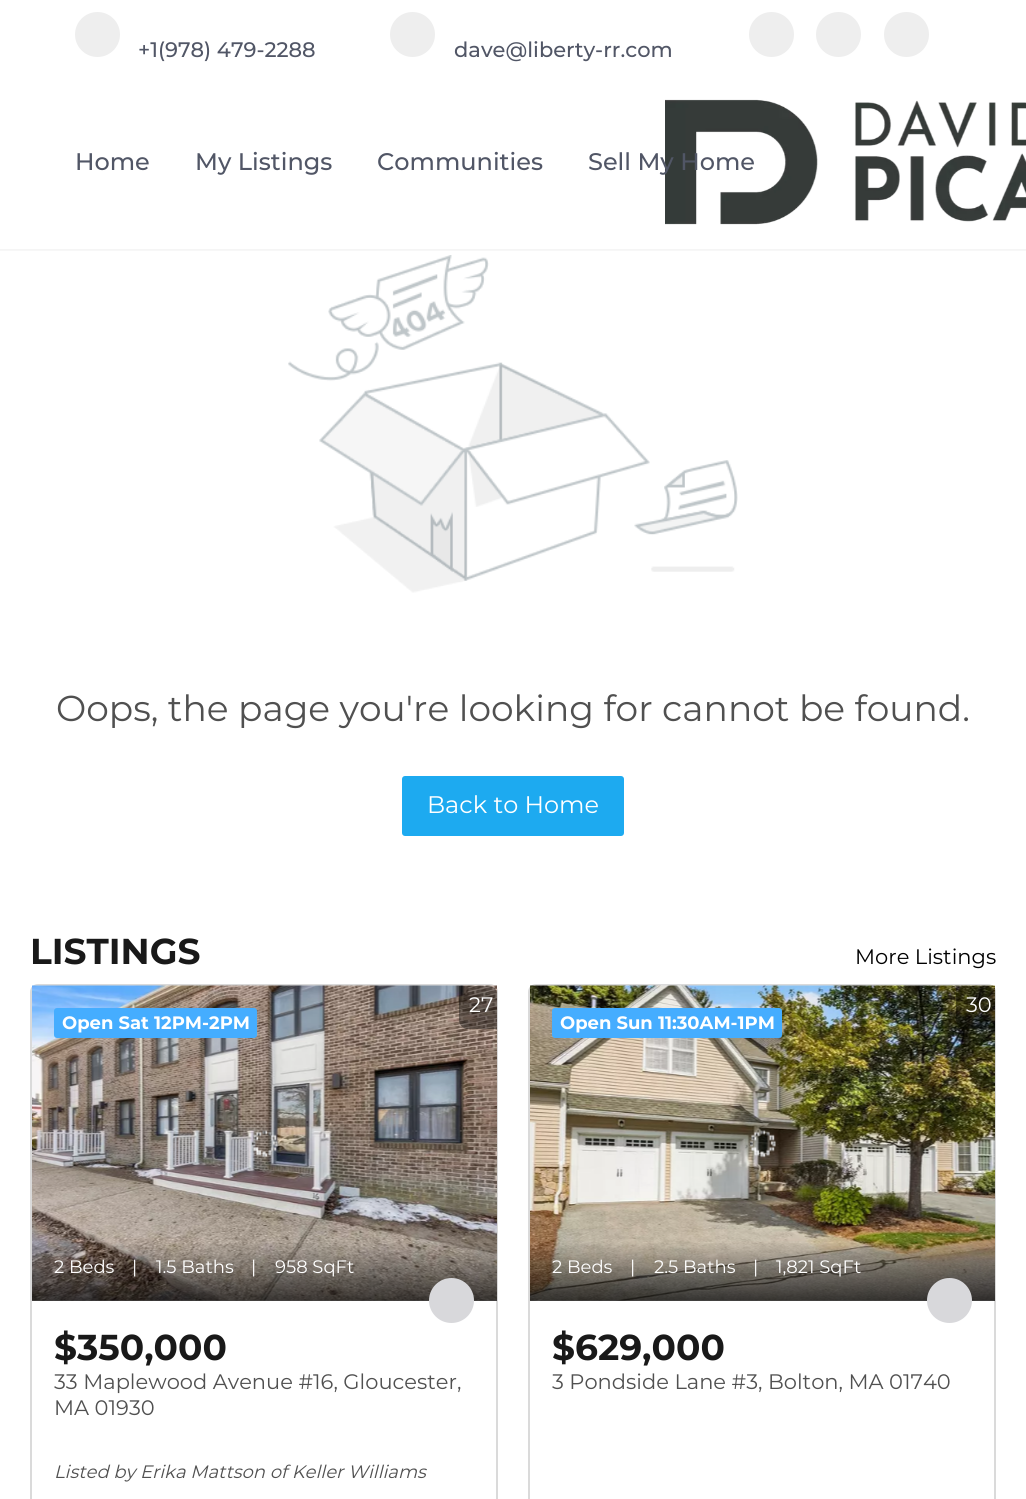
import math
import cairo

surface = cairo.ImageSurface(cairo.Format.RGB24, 1026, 1499)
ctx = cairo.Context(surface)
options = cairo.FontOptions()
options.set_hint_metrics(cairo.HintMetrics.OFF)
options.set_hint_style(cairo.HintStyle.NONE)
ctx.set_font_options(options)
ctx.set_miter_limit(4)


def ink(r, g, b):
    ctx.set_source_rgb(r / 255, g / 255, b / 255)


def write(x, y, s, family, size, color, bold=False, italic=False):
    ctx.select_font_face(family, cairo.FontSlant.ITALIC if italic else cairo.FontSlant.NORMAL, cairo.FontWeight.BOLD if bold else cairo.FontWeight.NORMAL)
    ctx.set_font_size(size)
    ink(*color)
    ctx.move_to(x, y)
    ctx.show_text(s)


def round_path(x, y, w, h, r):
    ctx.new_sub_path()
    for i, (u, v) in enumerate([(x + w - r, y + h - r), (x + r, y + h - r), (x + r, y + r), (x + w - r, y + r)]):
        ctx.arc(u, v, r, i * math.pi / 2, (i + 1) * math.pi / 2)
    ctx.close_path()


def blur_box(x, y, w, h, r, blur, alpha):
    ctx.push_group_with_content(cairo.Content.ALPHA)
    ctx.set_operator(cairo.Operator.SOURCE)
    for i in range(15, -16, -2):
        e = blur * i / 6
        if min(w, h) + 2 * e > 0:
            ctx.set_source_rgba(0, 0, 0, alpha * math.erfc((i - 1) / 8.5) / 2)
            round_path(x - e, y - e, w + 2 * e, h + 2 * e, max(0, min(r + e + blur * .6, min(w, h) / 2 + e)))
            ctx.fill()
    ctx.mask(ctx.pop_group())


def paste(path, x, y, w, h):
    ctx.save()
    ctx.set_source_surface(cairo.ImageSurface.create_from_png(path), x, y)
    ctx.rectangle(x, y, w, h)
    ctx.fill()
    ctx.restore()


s1 = dict(family="Montserrat Medium", size=21, color=(81, 86, 102))
s2 = dict(family="Montserrat Medium", size=24, color=(81, 86, 102))
s3 = dict(family="Montserrat", size=36, color=(80, 80, 80))
s4 = dict(family="Montserrat", size=24, color=(255, 255, 255))
s5 = dict(family="Montserrat", size=36, color=(25, 25, 25), bold=True)
s6 = dict(family="Montserrat", size=21, color=(0, 0, 0))
s7 = dict(family="Montserrat", size=21, color=(255, 255, 255))
s8 = dict(family="Montserrat", size=18, color=(255, 255, 255))
s9 = dict(family="Montserrat", size=18, color=(255, 255, 255), bold=True)
s10 = dict(family="Montserrat", size=21, color=(80, 80, 80))
s11 = dict(family="Montserrat", size=18, color=(80, 80, 80), italic=True)

ink(255, 255, 255)
ctx.paint()
paste("pic2.png", 288, 255, 450, 338)
ctx.save()
ctx.rectangle(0, 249, 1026, 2)
ctx.clip()
ink(0, 0, 0)
blur_box(-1, -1, 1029, 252, 0, 1.5, 0.05)
ctx.restore()
ink(238, 238, 238)
ctx.arc(97.5, 34.5, 22.5, 0, 2 * math.pi)
ctx.fill()
write(138, 57, "+1(978) 479-2288", **s1)
ink(238, 238, 238)
ctx.new_path()
ctx.arc(412.5, 34.5, 22.5, 0, 2 * math.pi)
ctx.fill()
write(454, 57, "dave@liberty-rr.com", **s1)
ink(238, 238, 238)
ctx.new_path()
ctx.arc(771.5, 34.5, 22.5, 0, 2 * math.pi)
ctx.fill()
ctx.arc(838.5, 34.5, 22.5, 0, 2 * math.pi)
ctx.fill()
ctx.arc(906.5, 34.5, 22.5, 0, 2 * math.pi)
ctx.fill()
write(75, 170, "Home", **s2)
write(195, 170, "My Listings", **s2)
write(377, 170, "Communities", **s2)
paste("pic1.png", 665, 99, 361, 126)
write(588, 170, "Sell My Home", **s2)
write(56, 721, "Oops, the page you're looking for cannot be found.", **s3)
ink(29, 170, 240)
round_path(402, 776, 222, 60, 3)
ctx.fill()
write(427, 813, "Back to Home", **s4)
write(30, 964, "LISTINGS", **s5)
write(855, 964, "More Listings", **s6)
round_path(31, 985, 466, 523, 7)
ink(218, 218, 218)
ctx.stroke()
paste("pic3.png", 32, 985, 465, 316)
paste("pic4.png", 251, 1130, 27, 28)
ctx.set_source_rgba(0, 0, 0, 0.4)
ctx.new_path()
ctx.move_to(459, 986)
ctx.line_to(489, 986)
ctx.curve_to(493.5, 986, 497, 989.5, 497, 994)
ctx.line_to(497, 1029)
ctx.line_to(468, 1029)
ctx.curve_to(463, 1029, 459, 1025, 459, 1020)
ctx.close_path()
ctx.fill()
write(469, 1012, "27", **s7)
gradient = cairo.LinearGradient(264, 1241, 264, 1301)
gradient.add_color_stop_rgba(0, 0, 0, 0, 0)
gradient.add_color_stop_rgba(1, 0, 0, 0, 0.7)
ctx.set_source(gradient)
ctx.rectangle(32, 1243, 465, 58)
ctx.fill()
write(54, 1273, "2 Beds", **s8)
write(132, 1273, "|", **s8)
write(156, 1273, "1.5 Baths", **s8)
write(251, 1273, "|", **s8)
write(275, 1273, "958 SqFt", **s8)
ink(69, 173, 255)
round_path(54, 1008, 203, 30, 3)
ctx.fill()
write(62, 1029, "Open Sat 12PM-2PM", **s9)
ink(216, 216, 219)
ctx.new_path()
ctx.arc(451.5, 1300.5, 22.5, 0, 2 * math.pi)
ctx.fill()
write(54, 1360, "$350,000", **s5)
write(54, 1389, "33 Maplewood Avenue #16, Gloucester,", **s10)
write(54, 1415, "MA 01930", **s10)
write(54, 1478, "Listed by Erika Mattson of Keller Williams", **s11)
round_path(529, 985, 466, 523, 7)
ink(218, 218, 218)
ctx.stroke()
paste("pic5.png", 530, 985, 465, 316)
paste("pic6.png", 749, 1130, 27, 28)
ctx.set_source_rgba(0, 0, 0, 0.4)
ctx.new_path()
ctx.move_to(956, 986)
ctx.line_to(987, 986)
ctx.curve_to(991.5, 986, 995, 989.5, 995, 994)
ctx.line_to(995, 1029)
ctx.line_to(965, 1029)
ctx.curve_to(960, 1029, 956, 1025, 956, 1020)
ctx.close_path()
ctx.fill()
write(966, 1012, "30", **s7)
gradient = cairo.LinearGradient(762, 1241, 762, 1301)
gradient.add_color_stop_rgba(0, 0, 0, 0, 0)
gradient.add_color_stop_rgba(1, 0, 0, 0, 0.7)
ctx.set_source(gradient)
ctx.rectangle(530, 1243, 465, 58)
ctx.fill()
write(552, 1273, "2 Beds", **s8)
write(630, 1273, "|", **s8)
write(654, 1273, "2.5 Baths", **s8)
write(753, 1273, "|", **s8)
write(776, 1273, "1,821 SqFt", **s8)
ink(69, 173, 255)
round_path(552, 1008, 230, 30, 3)
ctx.fill()
write(560, 1029, "Open Sun 11:30AM-1PM", **s9)
ink(216, 216, 219)
ctx.new_path()
ctx.arc(949.5, 1300.5, 22.5, 0, 2 * math.pi)
ctx.fill()
write(552, 1360, "$629,000", **s5)
write(552, 1389, "3 Pondside Lane #3, Bolton, MA 01740", **s10)
surface.write_to_png("screenshot.png")
